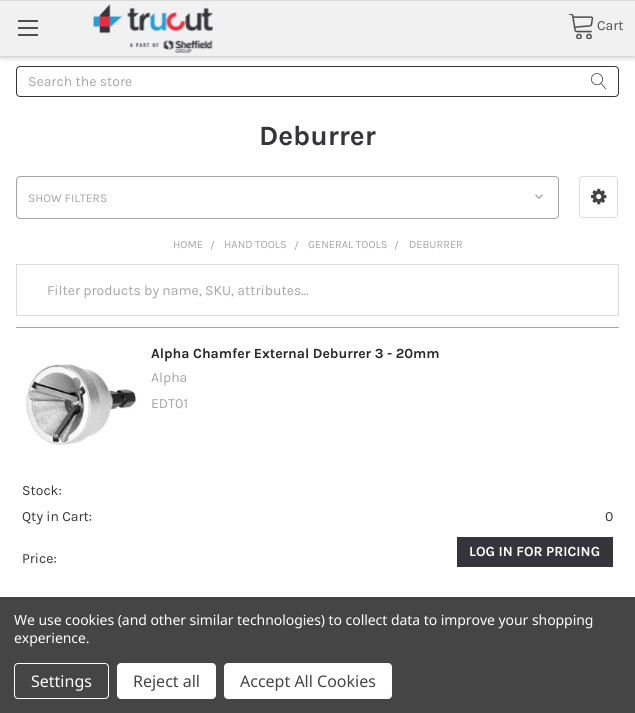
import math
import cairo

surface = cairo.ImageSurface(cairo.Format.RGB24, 635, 713)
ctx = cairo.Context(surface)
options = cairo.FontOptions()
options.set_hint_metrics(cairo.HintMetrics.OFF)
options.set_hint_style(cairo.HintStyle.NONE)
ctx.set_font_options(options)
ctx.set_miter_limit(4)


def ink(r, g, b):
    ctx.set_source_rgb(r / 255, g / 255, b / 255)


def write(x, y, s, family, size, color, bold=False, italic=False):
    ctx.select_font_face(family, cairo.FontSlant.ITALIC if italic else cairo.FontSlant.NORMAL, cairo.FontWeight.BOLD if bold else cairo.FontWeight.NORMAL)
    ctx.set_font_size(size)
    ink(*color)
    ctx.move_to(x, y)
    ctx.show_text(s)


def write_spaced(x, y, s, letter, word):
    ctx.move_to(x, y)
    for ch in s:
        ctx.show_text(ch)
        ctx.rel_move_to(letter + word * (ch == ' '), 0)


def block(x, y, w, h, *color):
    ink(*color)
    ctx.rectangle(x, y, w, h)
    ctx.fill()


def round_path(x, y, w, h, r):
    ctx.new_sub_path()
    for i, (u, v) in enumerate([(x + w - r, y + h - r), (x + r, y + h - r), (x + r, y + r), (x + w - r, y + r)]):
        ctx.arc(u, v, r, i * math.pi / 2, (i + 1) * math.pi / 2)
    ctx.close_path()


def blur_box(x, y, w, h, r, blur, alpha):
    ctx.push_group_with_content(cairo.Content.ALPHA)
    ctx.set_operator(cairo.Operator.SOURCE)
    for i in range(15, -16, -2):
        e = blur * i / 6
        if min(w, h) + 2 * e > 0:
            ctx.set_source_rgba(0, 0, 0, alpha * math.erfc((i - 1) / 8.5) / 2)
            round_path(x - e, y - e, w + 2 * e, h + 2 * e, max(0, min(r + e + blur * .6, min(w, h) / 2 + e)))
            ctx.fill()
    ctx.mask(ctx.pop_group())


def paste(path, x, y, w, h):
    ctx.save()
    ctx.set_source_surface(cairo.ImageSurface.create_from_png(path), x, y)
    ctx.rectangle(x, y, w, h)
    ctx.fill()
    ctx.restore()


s1 = dict(family="Karla", size=14, color=(80, 80, 80))
s2 = dict(family="Karla", size=14, color=(165, 165, 165))
s3 = dict(family="Karla", size=28, color=(52, 52, 58), bold=True)
s4 = dict(family="Karla", size=12, color=(165, 165, 165))
s5 = dict(family="Karla", size=11, color=(165, 165, 165))
s6 = dict(family="Karla", size=14, color=(40, 40, 40), bold=True)
s7 = dict(family="Karla", size=14, color=(52, 52, 58))
s8 = dict(family="Karla", size=14, color=(255, 255, 255), bold=True)
s9 = dict(family="Noto Sans", size=16, color=(255, 255, 255))
s10 = dict(family="Noto Sans", size=16, color=(69, 69, 69))

ink(255, 255, 255)
ctx.paint()
round_path(16.5, 66.5, 602, 30, 3.5)
ink(52, 52, 58)
ctx.set_line_width(1)
ctx.stroke()
ink(0, 0, 0)
blur_box(0, 2, 635, 56, 0, 2.5, 0.2)
block(0, 1, 635, 55, 241, 241, 242)
block(0, 0, 635, 1, 220, 220, 220)
block(18, 27, 20, 2, 80, 80, 80)
block(18, 20, 20, 2, 80, 80, 80)
block(18, 34, 20, 2, 80, 80, 80)
paste("pic1.png", 93, 4, 120, 49)
paste("pic2.png", 568, 14, 26, 25)
write(597, 30, "Cart", **s1)
write(28, 86, "Search the store", **s2)
paste("pic3.png", 591, 73, 16, 17)
write(259, 145, "Deburrer", **s3)
round_path(16.5, 176.5, 542, 42, 3.5)
ink(165, 165, 165)
ctx.stroke()
write(28, 202, "SHOW FILTERS", **s4)
paste("pic4.png", 535, 194, 8, 5)
round_path(579.5, 176.5, 38, 41, 3.5)
ink(220, 220, 220)
ctx.stroke()
paste("pic5.png", 591, 188, 16, 17)
write(173, 248, "HOME", **s5)
write(210, 249, "/", **s5)
write(224, 248, "HAND TOOLS", **s5)
write(294, 249, "/", **s5)
write(308, 248, "GENERAL TOOLS", **s5)
write(394, 249, "/", **s5)
write(409, 248, "DEBURRER", **s5)
ctx.rectangle(16.5, 264.5, 602, 51)
ink(220, 220, 220)
ctx.stroke()
write(47, 295, "Filter products by name, SKU, attributes...", **s2)
block(16, 327, 603, 1, 165, 165, 165)
paste("pic6.png", 26, 364, 111, 81)
write(151, 358, "Alpha Chamfer External Deburrer 3 - 20mm", **s6)
write(151, 382, "Alpha", **s2)
write(151, 408, "EDT01", **s2)
write(22, 495, "Stock:", **s7)
write(22, 521, "Qty in Cart:", **s7)
write(605, 521, "0", **s7)
block(457, 537, 156, 30, 52, 52, 58)
write(469, 556, "LOG IN FOR PRICING", **s8)
write(22, 563, "Price:", **s7)
block(0, 597, 635, 116, 69, 69, 69)
ctx.select_font_face("Noto Sans")
ink(255, 255, 255)
write_spaced(14, 625, "We use cookies (and other similar technologies) to collect data to improve your shopping", -0.05, 0)
write_spaced(14, 643, "experience.", -0.05, 0)
round_path(14.5, 663.5, 94, 35, 3.5)
ctx.stroke()
write(31, 687, "Settings", **s9)
round_path(117, 663, 99, 36, 4)
ctx.fill()
write(133, 687, "Reject all", **s10)
ink(255, 255, 255)
round_path(224, 663, 168, 36, 4)
ctx.fill()
write(240, 687, "Accept All Cookies", **s10)
surface.write_to_png("screenshot.png")
